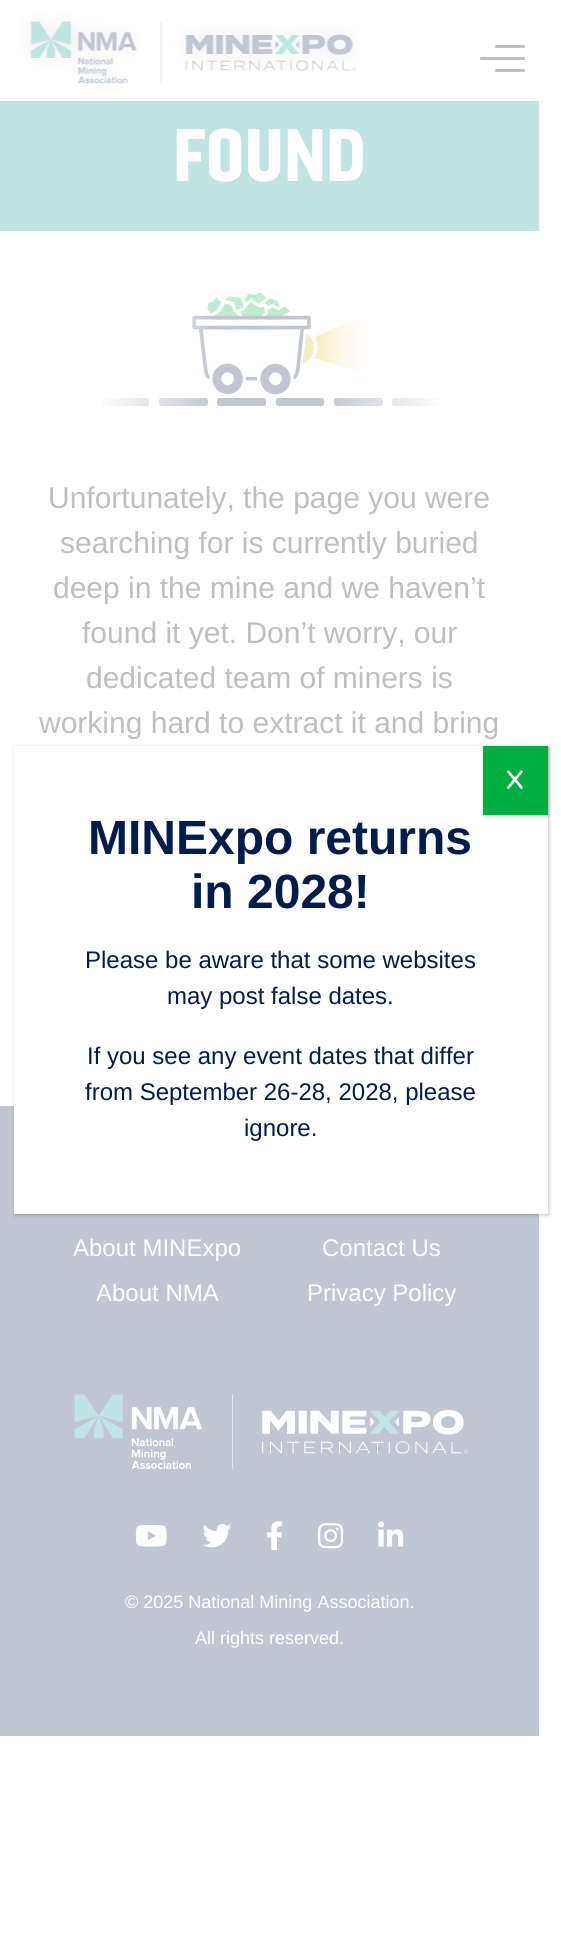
import math
import cairo

surface = cairo.ImageSurface(cairo.Format.RGB24, 561, 1957)
ctx = cairo.Context(surface)
options = cairo.FontOptions()
options.set_hint_metrics(cairo.HintMetrics.OFF)
options.set_hint_style(cairo.HintStyle.NONE)
ctx.set_font_options(options)
ctx.set_miter_limit(4)


def ink(r, g, b):
    ctx.set_source_rgb(r / 255, g / 255, b / 255)


def write(x, y, s, family, size, color, bold=False, italic=False):
    ctx.select_font_face(family, cairo.FontSlant.ITALIC if italic else cairo.FontSlant.NORMAL, cairo.FontWeight.BOLD if bold else cairo.FontWeight.NORMAL)
    ctx.set_font_size(size)
    ink(*color)
    ctx.move_to(x, y)
    ctx.show_text(s)


def block(x, y, w, h, *color):
    ink(*color)
    ctx.rectangle(x, y, w, h)
    ctx.fill()


def round_path(x, y, w, h, r):
    ctx.new_sub_path()
    for i, (u, v) in enumerate([(x + w - r, y + h - r), (x + r, y + h - r), (x + r, y + r), (x + w - r, y + r)]):
        ctx.arc(u, v, r, i * math.pi / 2, (i + 1) * math.pi / 2)
    ctx.close_path()


def blur_box(x, y, w, h, r, blur, alpha):
    ctx.push_group_with_content(cairo.Content.ALPHA)
    ctx.set_operator(cairo.Operator.SOURCE)
    for i in range(15, -16, -2):
        e = blur * i / 6
        if min(w, h) + 2 * e > 0:
            ctx.set_source_rgba(0, 0, 0, alpha * math.erfc((i - 1) / 8.5) / 2)
            round_path(x - e, y - e, w + 2 * e, h + 2 * e, max(0, min(r + e + blur * .6, min(w, h) / 2 + e)))
            ctx.fill()
    ctx.mask(ctx.pop_group())


def paste(path, x, y, w, h):
    ctx.save()
    ctx.set_source_surface(cairo.ImageSurface.create_from_png(path), x, y)
    ctx.rectangle(x, y, w, h)
    ctx.fill()
    ctx.restore()


s1 = dict(family="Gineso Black", size=72, color=(255, 255, 255))
s2 = dict(family="Liberation Sans", size=30, color=(191, 191, 191))
s3 = dict(family="Liberation Sans", size=48, color=(2, 29, 73), bold=True)
s4 = dict(family="Liberation Sans", size=24, color=(2, 29, 73))
s5 = dict(family="Liberation Sans", size=24, color=(255, 255, 255))
s6 = dict(family="Liberation Sans", size=18, color=(255, 255, 255))

ink(255, 255, 255)
ctx.paint()
paste("pic1.png", 19, 13, 342, 78)
ink(191, 191, 191)
round_path(495, 45, 30, 3, 1.5)
ctx.fill()
round_path(480, 57, 45, 3, 1.5)
ctx.fill()
round_path(495, 69, 30, 3, 1.5)
ctx.fill()
block(0, 101, 539, 130, 191, 228, 227)
write(173, 181, "FOUND", **s1)
paste("pic2.png", 101, 292, 340, 114)
gradient = cairo.LinearGradient(96, 356, 216, 356)
gradient.add_color_stop_rgba(0, 1, 1, 1, 1)
gradient.add_color_stop_rgba(1, 1, 1, 1, 0)
ctx.set_source(gradient)
ctx.rectangle(101, 303, 110, 103)
ctx.fill()
gradient = cairo.LinearGradient(323, 356, 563, 356)
gradient.add_color_stop_rgba(0, 1, 1, 1, 0)
gradient.add_color_stop_rgba(0.5, 1, 1, 1, 1)
ctx.set_source(gradient)
ctx.rectangle(331, 317, 110, 89)
ctx.fill()
write(48, 508, "Unfortunately, the page you were", **s2)
write(60, 553, "searching for is currently buried", **s2)
write(53, 598, "deep in the mine and we haven’t", **s2)
write(82, 643, "found it yet. Don’t worry, our", **s2)
write(86, 688, "dedicated team of miners is", **s2)
write(39, 733, "working hard to extract it and bring", **s2)
block(0, 1106, 539, 630, 192, 199, 210)
ink(2, 2, 2)
blur_box(15, 747, 534, 468, 0, 2, 0.23)
block(14, 746, 534, 468, 255, 255, 255)
ink(2, 2, 2)
blur_box(485, 747, 64, 69, 0, 2, 0.23)
block(483, 746, 65, 69, 0, 174, 65)
paste("pic3.png", 507, 770, 16, 19)
write(88, 854, "MINExpo returns", **s3)
write(191, 908, "in 2028!", **s3)
write(85, 968, "Please be aware that some websites", **s4)
write(167, 1004, "may post false dates.", **s4)
write(87, 1064, "If you see any event dates that differ", **s4)
write(85, 1100, "from September 26-28, 2028, please", **s4)
write(244, 1136, "ignore.", **s4)
write(73, 1256, "About MINExpo", **s5)
write(322, 1256, "Contact Us", **s5)
write(96, 1301, "About NMA", **s5)
write(307, 1301, "Privacy Policy", **s5)
paste("pic4.png", 74, 1394, 394, 75)
paste("pic5.png", 135, 1524, 32, 23)
paste("pic6.png", 202, 1524, 30, 24)
paste("pic7.png", 266, 1521, 17, 30)
paste("pic8.png", 318, 1523, 26, 26)
paste("pic9.png", 378, 1521, 26, 26)
write(125, 1608, "© 2025 National Mining Association.", **s6)
write(195, 1644, "All rights reserved.", **s6)
surface.write_to_png("screenshot.png")
